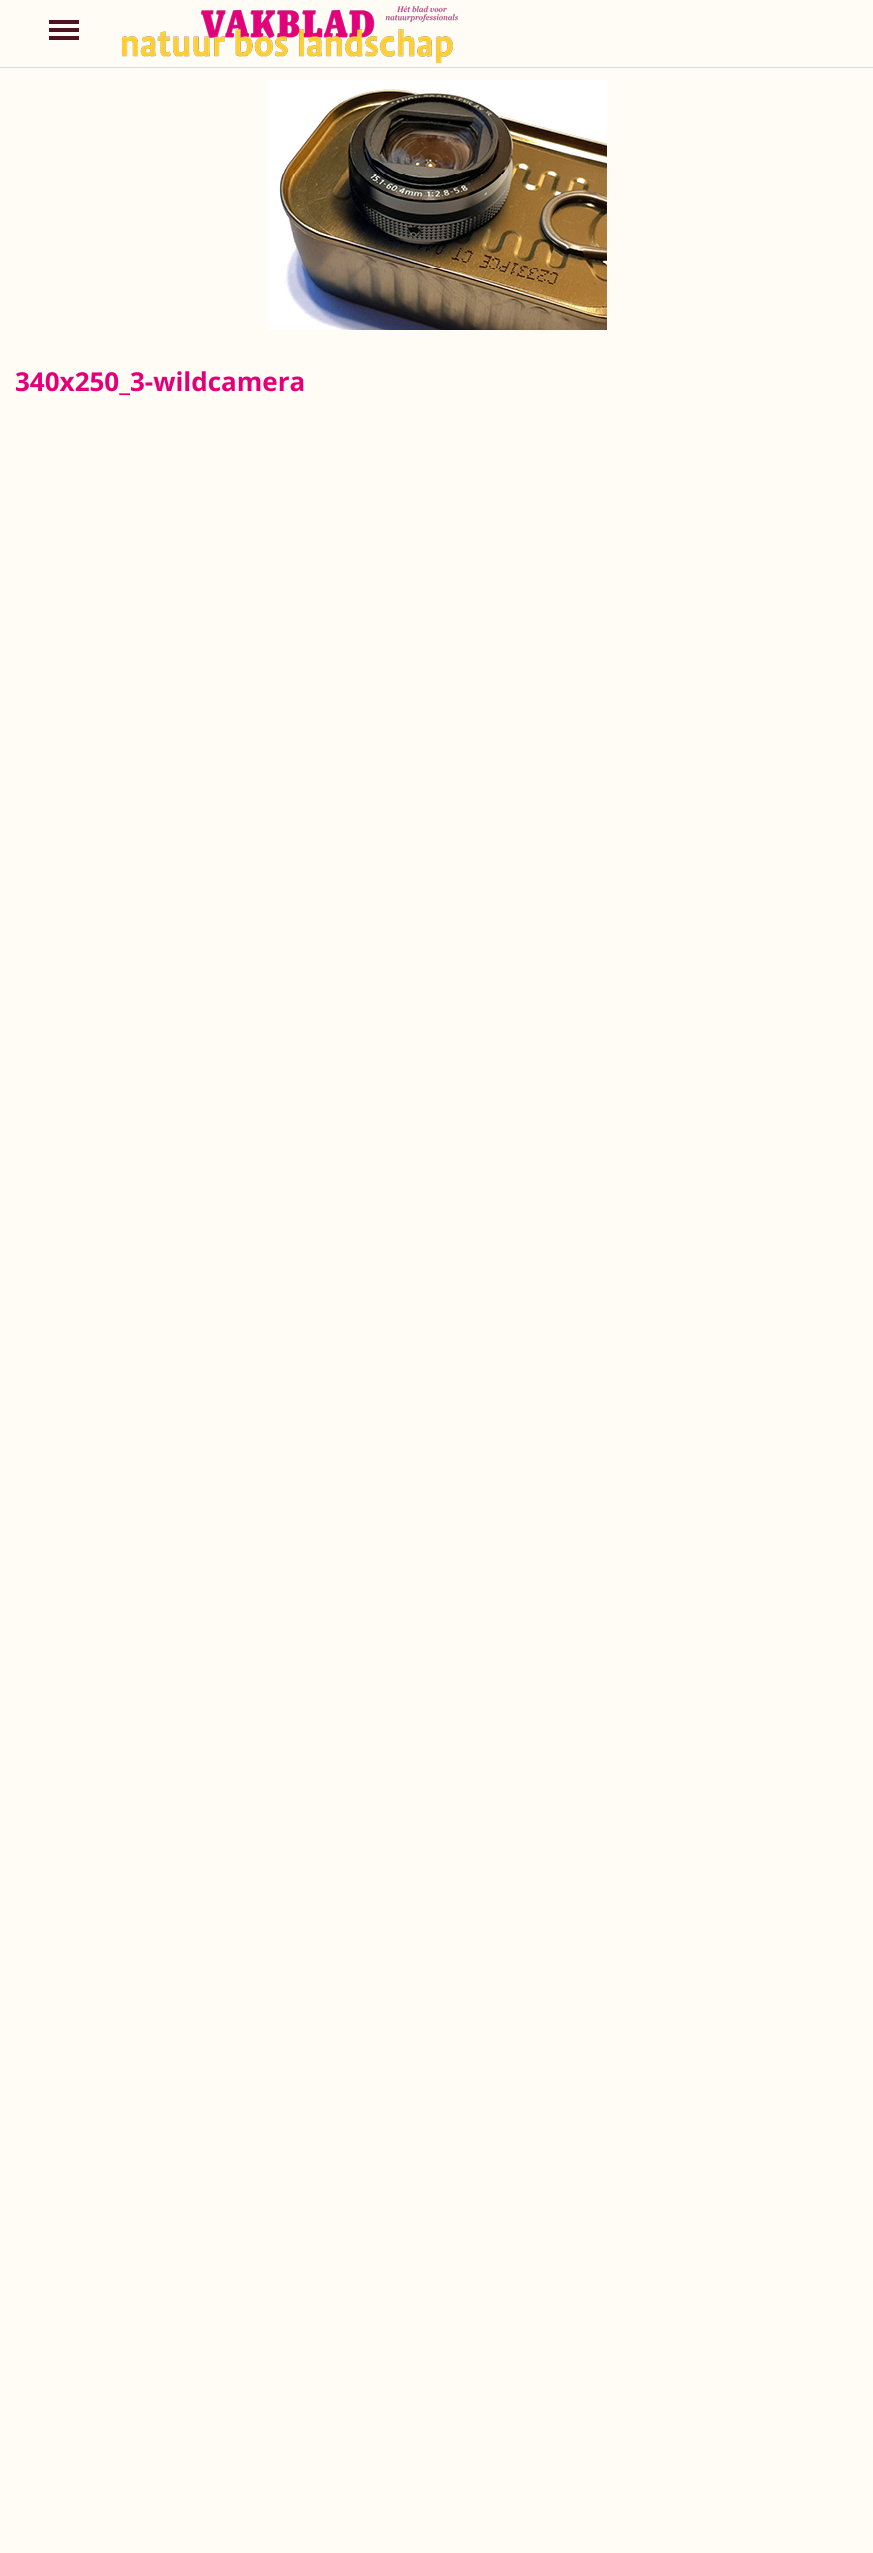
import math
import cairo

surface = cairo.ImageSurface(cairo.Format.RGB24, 873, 2553)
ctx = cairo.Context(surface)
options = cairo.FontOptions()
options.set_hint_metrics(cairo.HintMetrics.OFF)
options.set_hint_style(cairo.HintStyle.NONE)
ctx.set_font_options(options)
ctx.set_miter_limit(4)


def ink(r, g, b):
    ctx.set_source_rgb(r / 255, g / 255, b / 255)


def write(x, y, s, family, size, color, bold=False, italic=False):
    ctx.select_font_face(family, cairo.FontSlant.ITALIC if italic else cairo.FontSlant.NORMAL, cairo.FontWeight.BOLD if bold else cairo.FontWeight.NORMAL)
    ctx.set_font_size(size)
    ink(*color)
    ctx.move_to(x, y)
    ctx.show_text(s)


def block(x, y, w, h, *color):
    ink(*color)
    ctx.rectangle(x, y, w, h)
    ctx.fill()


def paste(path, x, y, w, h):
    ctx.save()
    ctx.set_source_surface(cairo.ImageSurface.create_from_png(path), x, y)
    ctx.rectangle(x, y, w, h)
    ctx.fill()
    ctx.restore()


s1 = dict(family="Open Sans", size=26, color=(226, 0, 122), bold=True)

ink(255, 252, 245)
ctx.paint()
block(0, 67, 873, 1, 222, 222, 222)
block(49, 20, 30, 4, 76, 19, 35)
block(49, 28, 30, 4, 76, 19, 35)
block(49, 36, 30, 4, 76, 19, 35)
paste("pic1.png", 122, 5, 336, 58)
paste("pic2.png", 267, 80, 340, 250)
write(15, 391, "340x250_3-wildcamera", **s1)
surface.write_to_png("screenshot.png")
